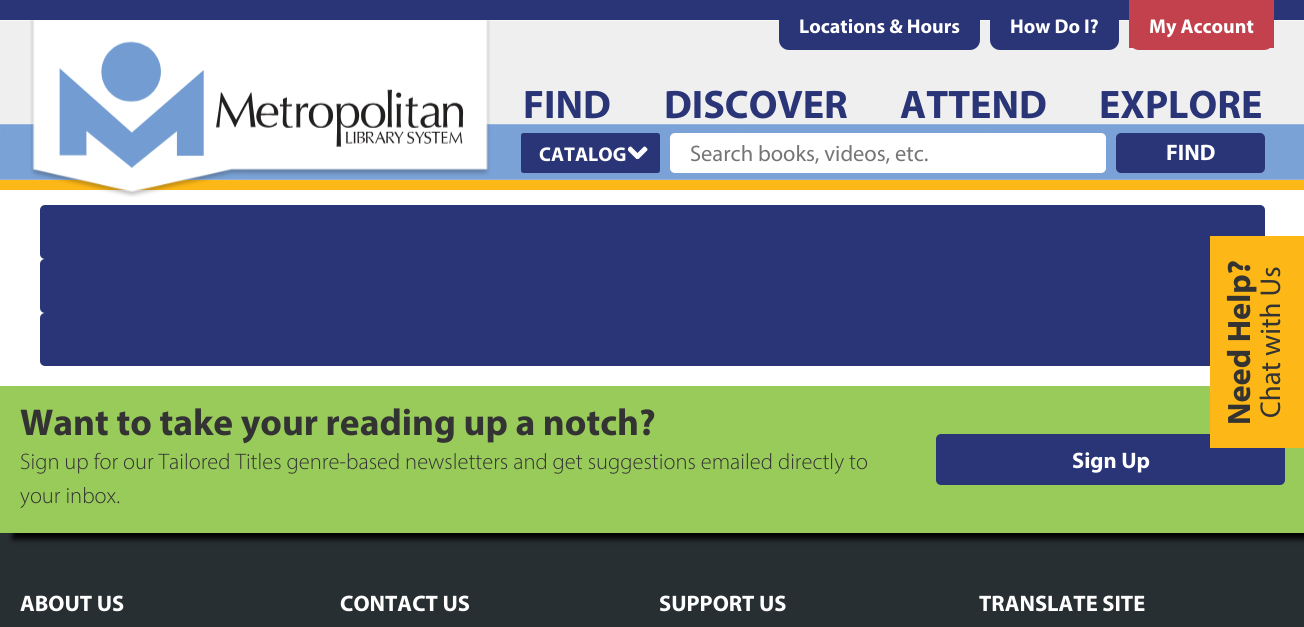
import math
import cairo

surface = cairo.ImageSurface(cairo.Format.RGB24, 1304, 627)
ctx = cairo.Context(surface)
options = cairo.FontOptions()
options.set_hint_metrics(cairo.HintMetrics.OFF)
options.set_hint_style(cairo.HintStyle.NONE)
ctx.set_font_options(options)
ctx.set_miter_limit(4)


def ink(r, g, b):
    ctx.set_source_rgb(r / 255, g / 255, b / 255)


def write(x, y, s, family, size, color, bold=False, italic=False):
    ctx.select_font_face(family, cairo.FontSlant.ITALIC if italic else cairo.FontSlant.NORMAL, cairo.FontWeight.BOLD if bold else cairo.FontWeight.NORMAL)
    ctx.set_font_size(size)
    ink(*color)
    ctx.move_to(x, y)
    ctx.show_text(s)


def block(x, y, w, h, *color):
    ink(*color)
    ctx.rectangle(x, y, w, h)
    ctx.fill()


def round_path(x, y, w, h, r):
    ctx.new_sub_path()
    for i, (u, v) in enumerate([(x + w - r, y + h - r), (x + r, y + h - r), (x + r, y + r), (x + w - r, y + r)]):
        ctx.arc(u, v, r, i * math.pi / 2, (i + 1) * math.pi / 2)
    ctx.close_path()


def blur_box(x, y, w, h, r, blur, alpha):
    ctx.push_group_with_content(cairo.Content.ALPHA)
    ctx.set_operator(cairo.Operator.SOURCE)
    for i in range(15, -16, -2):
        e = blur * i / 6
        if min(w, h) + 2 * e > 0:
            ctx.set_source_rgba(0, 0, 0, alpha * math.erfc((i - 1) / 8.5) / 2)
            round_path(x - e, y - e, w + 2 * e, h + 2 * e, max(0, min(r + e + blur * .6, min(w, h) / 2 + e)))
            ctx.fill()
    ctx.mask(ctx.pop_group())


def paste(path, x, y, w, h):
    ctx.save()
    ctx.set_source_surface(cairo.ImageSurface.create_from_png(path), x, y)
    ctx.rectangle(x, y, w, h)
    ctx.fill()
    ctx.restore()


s1 = dict(family="Myriad", size=20, color=(255, 255, 255), bold=True)
s2 = dict(family="Myriad", size=40, color=(42, 53, 120), bold=True)
s3 = dict(family="Myriad", size=22.5, color=(117, 117, 117))
s4 = dict(family="Myriad", size=22.5, color=(255, 255, 255), bold=True)
s5 = dict(family="Myriad", size=32.5, color=(51, 51, 51), bold=True)
s6 = dict(family="Myriad", size=28.75, color=(51, 51, 51))
s7 = dict(family="Myriad", size=37.5, color=(51, 51, 51), bold=True)
s8 = dict(family="Myriad Light", size=22.5, color=(51, 51, 51))

ink(255, 255, 255)
ctx.paint()
paste("pic1.png", 0, 20, 1304, 160)
block(0, 0, 1304, 20, 42, 53, 120)
block(0, 180, 1304, 10, 253, 183, 22)
paste("pic2.png", 30, 20, 460, 177)
paste("pic3.png", 59, 41, 405, 127)
ink(42, 53, 120)
ctx.new_path()
ctx.move_to(779, 0)
ctx.line_to(980, 0)
ctx.line_to(980, 40)
ctx.curve_to(980, 45.5, 975.5, 50, 970, 50)
ctx.line_to(789, 50)
ctx.curve_to(783.5, 50, 779, 45.5, 779, 40)
ctx.close_path()
ctx.fill()
write(799, 33, "Locations & Hours", **s1)
ink(42, 53, 120)
ctx.new_path()
ctx.move_to(990, 0)
ctx.line_to(1119, 0)
ctx.line_to(1119, 40)
ctx.curve_to(1119, 45.5, 1114.5, 50, 1109, 50)
ctx.line_to(1000, 50)
ctx.curve_to(994.5, 50, 990, 45.5, 990, 40)
ctx.close_path()
ctx.fill()
write(1010, 33, "How Do I?", **s1)
ink(195, 64, 77)
ctx.new_path()
ctx.move_to(1129, 0)
ctx.line_to(1274, 0)
ctx.line_to(1274, 40)
ctx.curve_to(1274, 45.5, 1269.5, 50, 1264, 50)
ctx.line_to(1139, 50)
ctx.curve_to(1133.5, 50, 1129, 45.5, 1129, 40)
ctx.close_path()
ctx.fill()
write(1149, 33, "My Account", **s1)
block(1129, 40, 145, 8, 195, 64, 77)
write(523, 118, "FIND", **s2)
write(664, 118, "DISCOVER", **s2)
write(900, 118, "ATTEND", **s2)
write(1099, 118, "EXPLORE", **s2)
round_path(521, 133, 139, 40, 2.5)
ctx.fill()
paste("pic4.png", 628, 146, 20, 13)
write(539, 161, "CATALOG", **s1)
round_path(670, 133, 436, 40, 5)
ctx.fill()
write(690, 161, "Search books, videos, etc.", **s3)
ink(42, 53, 120)
round_path(1116, 133, 149, 40, 5)
ctx.fill()
write(1166, 160, "FIND", **s4)
ink(42, 53, 120)
round_path(40, 205, 1225, 54, 5)
ctx.fill()
round_path(40, 259, 1225, 54, 5)
ctx.fill()
round_path(40, 313, 1225, 53, 5)
ctx.fill()
block(0, 533, 1304, 94, 40, 47, 51)
ink(0, 0, 0)
blur_box(13, 393, 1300, 146, 0, 3, 1)
block(0, 386, 1304, 147, 153, 203, 91)
ink(42, 53, 120)
round_path(936, 434, 349, 51, 5)
ctx.fill()
block(1210, 236, 94, 212, 253, 183, 22)
ctx.save()
ctx.translate(1250, 425)
ctx.rotate(-90 * math.pi / 180)
write(0, 0, "Need Help?", **s5)
ctx.restore()
ctx.save()
ctx.translate(1280, 418)
ctx.rotate(-90 * math.pi / 180)
write(0, 0, "Chat with Us", **s6)
ctx.restore()
write(20, 611, "ABOUT US", **s4)
write(340, 611, "CONTACT US", **s4)
write(659, 611, "SUPPORT US", **s4)
write(979, 611, "TRANSLATE SITE", **s4)
write(20, 435, "Want to take your reading up a notch?", **s7)
write(20, 469, "Sign up for our Tailored Titles genre-based newsletters and get suggestions emailed directly to", **s8)
write(20, 503, "your inbox.", **s8)
write(1072, 468, "Sign Up", **s4)
surface.write_to_png("screenshot.png")
